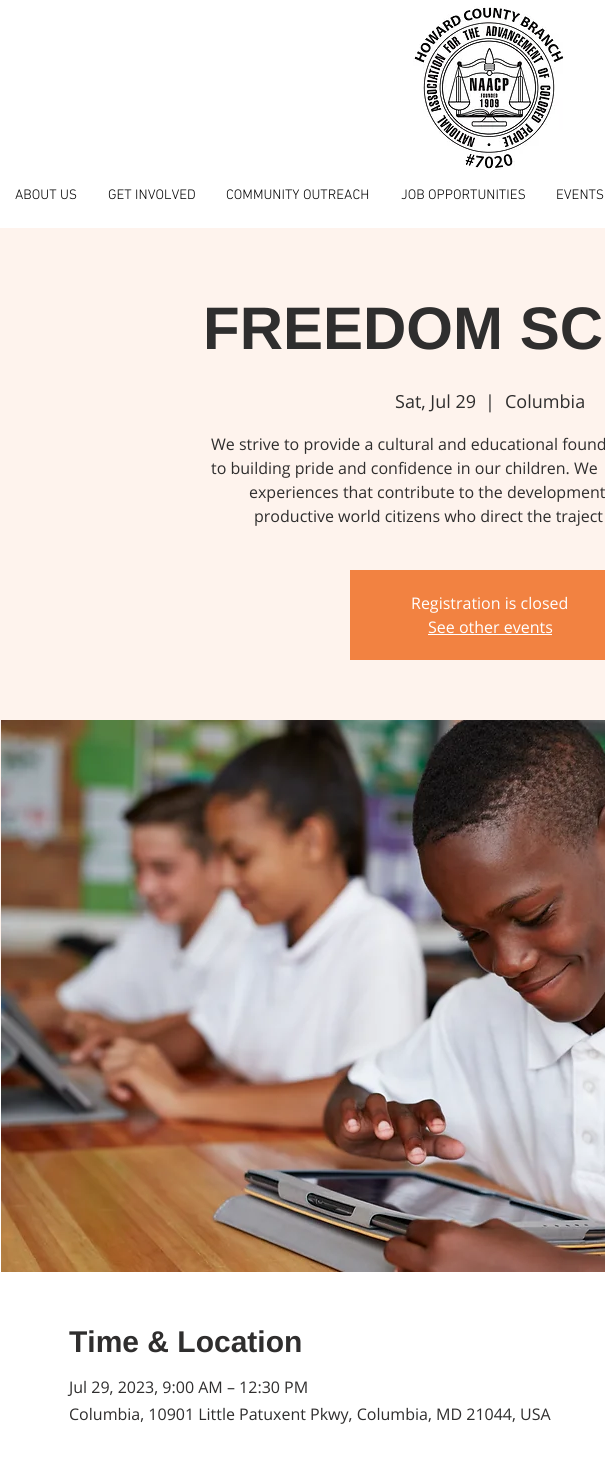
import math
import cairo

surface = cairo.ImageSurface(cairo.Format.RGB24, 605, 1481)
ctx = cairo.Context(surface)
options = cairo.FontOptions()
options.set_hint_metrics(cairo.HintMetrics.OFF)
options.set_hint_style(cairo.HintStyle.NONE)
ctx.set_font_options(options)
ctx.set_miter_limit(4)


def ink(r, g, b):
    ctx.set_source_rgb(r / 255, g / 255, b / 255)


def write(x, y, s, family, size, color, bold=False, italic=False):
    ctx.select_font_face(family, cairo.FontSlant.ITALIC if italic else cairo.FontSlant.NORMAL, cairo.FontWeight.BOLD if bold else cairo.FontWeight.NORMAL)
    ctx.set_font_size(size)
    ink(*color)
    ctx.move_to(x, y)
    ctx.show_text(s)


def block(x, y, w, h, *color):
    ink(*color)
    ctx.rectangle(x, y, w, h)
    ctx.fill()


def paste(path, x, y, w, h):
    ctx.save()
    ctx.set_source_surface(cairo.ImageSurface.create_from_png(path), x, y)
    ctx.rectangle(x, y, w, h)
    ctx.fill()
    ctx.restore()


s1 = dict(family="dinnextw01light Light", size=14, color=(0, 0, 0))
s2 = dict(family="Liberation Sans", size=60, color=(47, 46, 46), bold=True)
s3 = dict(family="Open Sans", size=18, color=(47, 46, 46))
s4 = dict(family="Open Sans", size=16, color=(47, 46, 46))
s5 = dict(family="Open Sans", size=16, color=(255, 255, 255))
s6 = dict(family="Liberation Sans", size=30, color=(47, 46, 46), bold=True)

ink(255, 255, 255)
ctx.paint()
paste("pic1.png", 413, 6, 152, 164)
write(15, 199, "ABOUT US", **s1)
write(108, 199, "GET INVOLVED", **s1)
write(226, 199, "COMMUNITY OUTREACH", **s1)
write(401, 199, "JOB OPPORTUNITIES", **s1)
write(556, 199, "EVENTS", **s1)
block(0, 228, 605, 768, 254, 243, 237)
write(203, 349, "FREEDOM SC", **s2)
write(395, 408, "Sat, Jul 29", **s3)
write(485, 408, "|", **s3)
write(505, 408, "Columbia", **s3)
write(211, 450, "We strive to provide a cultural and educational found", **s4)
write(211, 474, "to building pride and confidence in our children. We", **s4)
write(249, 498, "experiences that contribute to the development", **s4)
write(254, 522, "productive world citizens who direct the traject", **s4)
block(350, 570, 255, 90, 242, 130, 65)
write(411, 609, "Registration is closed", **s5)
write(428, 633, "See other events", **s5)
block(428, 634, 124, 1, 255, 255, 255)
paste("pic2.png", 1, 720, 604, 552)
write(69, 1352, "Time & Location", **s6)
write(69, 1393, "Jul 29, 2023, 9:00 AM – 12:30 PM", **s4)
write(69, 1420, "Columbia, 10901 Little Patuxent Pkwy, Columbia, MD 21044, USA", **s4)
surface.write_to_png("screenshot.png")
